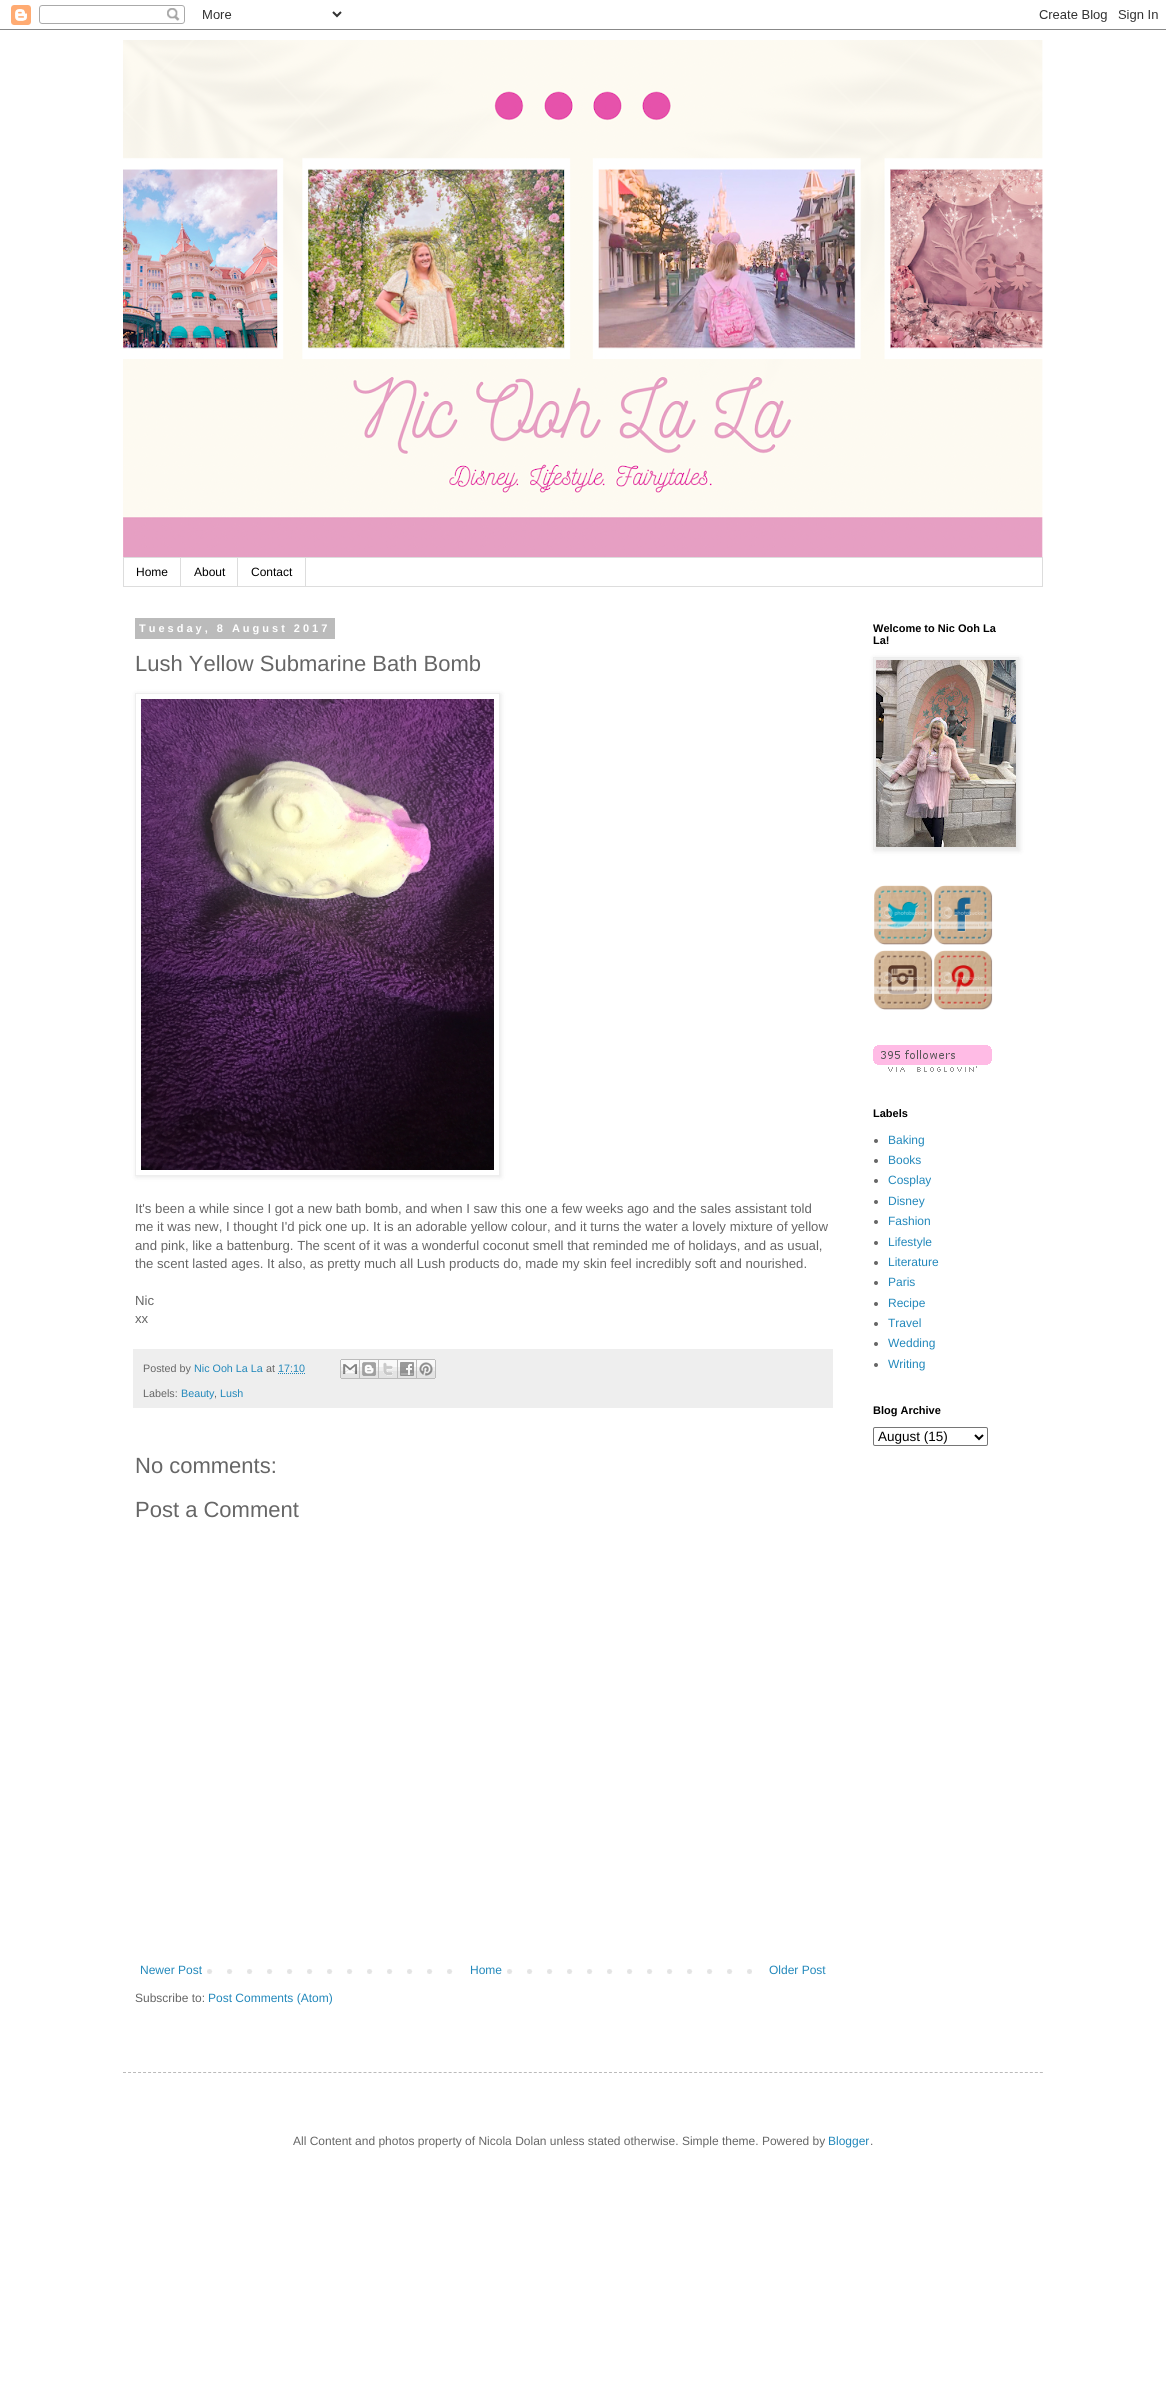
import math
import cairo

surface = cairo.ImageSurface(cairo.Format.RGB24, 1166, 2400)
ctx = cairo.Context(surface)
options = cairo.FontOptions()
options.set_hint_metrics(cairo.HintMetrics.OFF)
options.set_hint_style(cairo.HintStyle.NONE)
ctx.set_font_options(options)
ctx.set_miter_limit(4)


def ink(r, g, b):
    ctx.set_source_rgb(r / 255, g / 255, b / 255)


def write(x, y, s, family, size, color, bold=False, italic=False):
    ctx.select_font_face(family, cairo.FontSlant.ITALIC if italic else cairo.FontSlant.NORMAL, cairo.FontWeight.BOLD if bold else cairo.FontWeight.NORMAL)
    ctx.set_font_size(size)
    ink(*color)
    ctx.move_to(x, y)
    ctx.show_text(s)


def write_spaced(x, y, s, letter, word):
    ctx.move_to(x, y)
    for ch in s:
        ctx.show_text(ch)
        ctx.rel_move_to(letter + word * (ch == ' '), 0)


def block(x, y, w, h, *color):
    ink(*color)
    ctx.rectangle(x, y, w, h)
    ctx.fill()


def round_path(x, y, w, h, r):
    ctx.new_sub_path()
    for i, (u, v) in enumerate([(x + w - r, y + h - r), (x + r, y + h - r), (x + r, y + r), (x + w - r, y + r)]):
        ctx.arc(u, v, r, i * math.pi / 2, (i + 1) * math.pi / 2)
    ctx.close_path()


def blur_box(x, y, w, h, r, blur, alpha):
    ctx.push_group_with_content(cairo.Content.ALPHA)
    ctx.set_operator(cairo.Operator.SOURCE)
    for i in range(15, -16, -2):
        e = blur * i / 6
        if min(w, h) + 2 * e > 0:
            ctx.set_source_rgba(0, 0, 0, alpha * math.erfc((i - 1) / 8.5) / 2)
            round_path(x - e, y - e, w + 2 * e, h + 2 * e, max(0, min(r + e + blur * .6, min(w, h) / 2 + e)))
            ctx.fill()
    ctx.mask(ctx.pop_group())


def paste(path, x, y, w, h):
    ctx.save()
    ctx.set_source_surface(cairo.ImageSurface.create_from_png(path), x, y)
    ctx.rectangle(x, y, w, h)
    ctx.fill()
    ctx.restore()


s1 = dict(family="Liberation Sans", size=12, color=(0, 0, 0))
s2 = dict(family="Liberation Sans", size=22, color=(102, 102, 102))
s3 = dict(family="Liberation Sans", size=13.2, color=(102, 102, 102))
s4 = dict(family="Liberation Sans", size=10.75, color=(102, 102, 102))
s5 = dict(family="Liberation Sans", size=10.75, color=(34, 136, 187))
s6 = dict(family="Liberation Sans", size=12, color=(34, 136, 187))
s7 = dict(family="Liberation Sans", size=12, color=(102, 102, 102))
s8 = dict(family="Liberation Sans", size=11, color=(0, 0, 0), bold=True)
s9 = dict(family="Liberation Sans", size=13.5, color=(0, 0, 0))

ink(255, 255, 255)
ctx.paint()
paste("pic1.png", 0, 5, 1166, 25)
paste("pic2.png", 123, 40, 920, 517)
ctx.rectangle(123.5, 557.5, 919, 29)
ink(221, 221, 221)
ctx.set_line_width(1)
ctx.stroke()
block(180, 558, 1, 28, 221, 221, 221)
write(136, 576, "Home", **s1)
block(237, 558, 1, 28, 221, 221, 221)
write(194, 576, "About", **s1)
block(305, 558, 1, 28, 221, 221, 221)
write(251, 576, "Contact", **s1)
block(135, 618, 200, 21, 187, 187, 187)
ctx.select_font_face("Liberation Sans", cairo.FontSlant.NORMAL, cairo.FontWeight.BOLD)
ctx.set_font_size(11)
ink(255, 255, 255)
write_spaced(139, 632, "Tuesday, 8 August 2017", 3, 0)
write(135, 671, "Lush Yellow Submarine Bath Bomb", **s2)
ctx.save()
ctx.set_fill_rule(cairo.FillRule.EVEN_ODD)
ctx.new_path()
ctx.move_to(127, 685)
ctx.line_to(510, 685)
ctx.line_to(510, 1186)
ctx.line_to(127, 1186)
ctx.close_path()
ctx.move_to(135, 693)
ctx.line_to(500, 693)
ctx.line_to(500, 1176)
ctx.line_to(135, 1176)
ctx.close_path()
ctx.clip()
ink(0, 0, 0)
blur_box(136, 694, 365, 483, 0, 2.5, 0.1)
ctx.restore()
ctx.rectangle(135.5, 693.5, 364, 482)
ink(238, 238, 238)
ctx.stroke()
paste("pic3.png", 141, 699, 353, 471)
write(135, 1213, "It's been a while since I got a new bath bomb, and when I saw this one a few weeks ago and the sales assistant told", **s3)
write(135, 1231, "me it was new, I thought I'd pick one up. It is an adorable yellow colour, and it turns the water a lovely mixture of yellow", **s3)
write(135, 1250, "and pink, like a battenburg. The scent of it was a wonderful coconut smell that reminded me of holidays, and as usual,", **s3)
write(135, 1268, "the scent lasted ages. It also, as pretty much all Lush products do, made my skin feel incredibly soft and nourished.", **s3)
write(135, 1305, "Nic", **s3)
write(135, 1323, "xx", **s3)
block(133, 1349, 700, 59, 238, 238, 238)
write(143, 1372, "Posted by", **s4)
write(194, 1372, "Nic Ooh La La", **s5)
write(266, 1372, "at", **s4)
write(278, 1372, "17:10", **s5)
ctx.new_path()
ctx.move_to(278, 1373.5)
ctx.line_to(305, 1373.5)
ctx.set_dash([1, 1])
ctx.stroke()
paste("pic4.png", 340, 1359, 20, 20)
paste("pic5.png", 360, 1359, 19, 20)
paste("pic6.png", 379, 1359, 19, 20)
paste("pic7.png", 398, 1359, 19, 20)
paste("pic8.png", 417, 1359, 19, 20)
write(143, 1397, "Labels:", **s4)
write(181, 1397, "Beauty", **s5)
write(214, 1397, ",", **s4)
write(220, 1397, "Lush", **s5)
write(135, 1473, "No comments:", **s2)
write(135, 1517, "Post a Comment", **s2)
paste("pic9.png", 207, 1969, 545, 5)
write(140, 1974, "Newer Post", **s6)
block(467, 1969, 26, 5, 255, 255, 255)
write(470, 1974, "Home", **s6)
write(769, 1974, "Older Post", **s6)
write(135, 2002, "Subscribe to:", **s7)
write(208, 2002, "Post Comments (Atom)", **s6)
write(873, 632, "Welcome to Nic Ooh La", **s8)
write(873, 644, "La!", **s8)
ink(0, 0, 0)
blur_box(874, 658, 146, 193, 0, 2.5, 0.1)
ctx.rectangle(873.5, 657.5, 145, 192)
ink(238, 238, 238)
ctx.set_dash([])
ctx.stroke()
paste("pic10.png", 876, 660, 140, 187)
paste("pic11.png", 874, 885, 59, 60)
paste("pic12.png", 934, 885, 59, 60)
paste("pic13.png", 874, 950, 59, 60)
paste("pic14.png", 934, 950, 59, 60)
paste("pic15.png", 873, 1045, 119, 27)
write(873, 1117, "Labels", **s8)
ink(102, 102, 102)
ctx.new_path()
ctx.arc(876, 1141, 2, 0, 2 * math.pi)
ctx.fill()
write(888, 1144, "Baking", **s6)
ink(102, 102, 102)
ctx.new_path()
ctx.arc(876, 1161, 2, 0, 2 * math.pi)
ctx.fill()
write(888, 1164, "Books", **s6)
ink(102, 102, 102)
ctx.new_path()
ctx.arc(876, 1181, 2, 0, 2 * math.pi)
ctx.fill()
write(888, 1184, "Cosplay", **s6)
ink(102, 102, 102)
ctx.new_path()
ctx.arc(876, 1202, 2, 0, 2 * math.pi)
ctx.fill()
write(888, 1205, "Disney", **s6)
ink(102, 102, 102)
ctx.new_path()
ctx.arc(876, 1222, 2, 0, 2 * math.pi)
ctx.fill()
write(888, 1225, "Fashion", **s6)
ink(102, 102, 102)
ctx.new_path()
ctx.arc(876, 1243, 2, 0, 2 * math.pi)
ctx.fill()
write(888, 1246, "Lifestyle", **s6)
ink(102, 102, 102)
ctx.new_path()
ctx.arc(876, 1263, 2, 0, 2 * math.pi)
ctx.fill()
write(888, 1266, "Literature", **s6)
ink(102, 102, 102)
ctx.new_path()
ctx.arc(876, 1283, 2, 0, 2 * math.pi)
ctx.fill()
write(888, 1286, "Paris", **s6)
ink(102, 102, 102)
ctx.new_path()
ctx.arc(876, 1304, 2, 0, 2 * math.pi)
ctx.fill()
write(888, 1307, "Recipe", **s6)
ink(102, 102, 102)
ctx.new_path()
ctx.arc(876, 1324, 2, 0, 2 * math.pi)
ctx.fill()
write(888, 1327, "Travel", **s6)
ink(102, 102, 102)
ctx.new_path()
ctx.arc(876, 1344, 2, 0, 2 * math.pi)
ctx.fill()
write(888, 1347, "Wedding", **s6)
ink(102, 102, 102)
ctx.new_path()
ctx.arc(876, 1365, 2, 0, 2 * math.pi)
ctx.fill()
write(888, 1368, "Writing", **s6)
write(873, 1414, "Blog Archive", **s8)
round_path(873.5, 1427.5, 114, 18, 1.5)
ink(118, 118, 118)
ctx.stroke()
ctx.new_path()
ctx.move_to(975, 1435)
ctx.line_to(979, 1439)
ctx.line_to(983, 1435)
ink(0, 0, 0)
ctx.set_line_width(2)
ctx.stroke()
write(878, 1441, "August (15)", **s9)
ctx.new_path()
ctx.move_to(123, 2072.5)
ctx.line_to(1043, 2072.5)
ink(187, 187, 187)
ctx.set_line_width(1)
ctx.set_dash([3, 2.01])
ctx.stroke()
write(293, 2145, "All Content and photos property of Nicola Dolan unless stated otherwise. Simple theme. Powered by", **s7)
write(828, 2145, "Blogger", **s6)
write(870, 2145, ".", **s7)
surface.write_to_png("screenshot.png")
